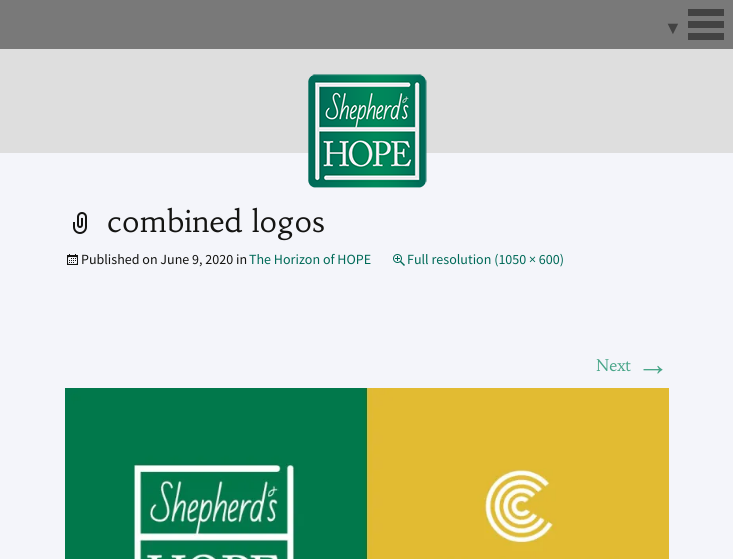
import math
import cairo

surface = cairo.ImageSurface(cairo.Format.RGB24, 733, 559)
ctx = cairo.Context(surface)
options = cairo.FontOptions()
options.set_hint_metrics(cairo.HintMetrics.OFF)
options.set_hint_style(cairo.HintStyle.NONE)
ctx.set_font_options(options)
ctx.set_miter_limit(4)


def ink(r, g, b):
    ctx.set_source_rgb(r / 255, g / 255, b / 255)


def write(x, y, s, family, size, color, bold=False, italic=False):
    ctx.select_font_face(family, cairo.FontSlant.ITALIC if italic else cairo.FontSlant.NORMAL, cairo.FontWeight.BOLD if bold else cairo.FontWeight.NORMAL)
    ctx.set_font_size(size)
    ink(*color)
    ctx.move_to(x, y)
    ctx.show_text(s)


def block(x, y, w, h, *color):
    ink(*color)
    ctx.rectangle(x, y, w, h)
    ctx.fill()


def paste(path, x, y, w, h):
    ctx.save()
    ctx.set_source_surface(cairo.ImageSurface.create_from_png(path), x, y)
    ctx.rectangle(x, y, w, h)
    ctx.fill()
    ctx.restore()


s1 = dict(family="Liberation Serif", size=18, color=(66, 66, 66), bold=True)
s2 = dict(family="Habibi", size=30, color=(20, 20, 18))
s3 = dict(family="Source Sans Pro", size=14, color=(20, 20, 18))
s4 = dict(family="Source Sans Pro", size=14, color=(0, 106, 88))
s5 = dict(family="Habibi", size=16, color=(72, 165, 136))
s6 = dict(family="Liberation Serif", size=32, color=(72, 165, 136))

ink(244, 245, 250)
ctx.paint()
block(0, 0, 733, 49, 121, 121, 121)
block(0, 49, 733, 104, 222, 222, 222)
write(664, 34, "▼", **s1)
paste("pic1.png", 688, 9, 36, 31)
paste("pic2.png", 308, 74, 119, 114)
paste("pic3.png", 73, 212, 14, 22)
write(107, 232, "combined logos", **s2)
paste("pic4.png", 67, 254, 11, 11)
write(81, 264, "Published on June 9, 2020 in", **s3)
write(249, 264, "The Horizon of HOPE", **s4)
paste("pic5.png", 393, 254, 12, 12)
write(407, 264, "Full resolution (1050 × 600)", **s4)
write(596, 371, "Next", **s5)
write(637, 375, "→", **s6)
paste("pic6.png", 65, 388, 604, 171)
surface.write_to_png("screenshot.png")
